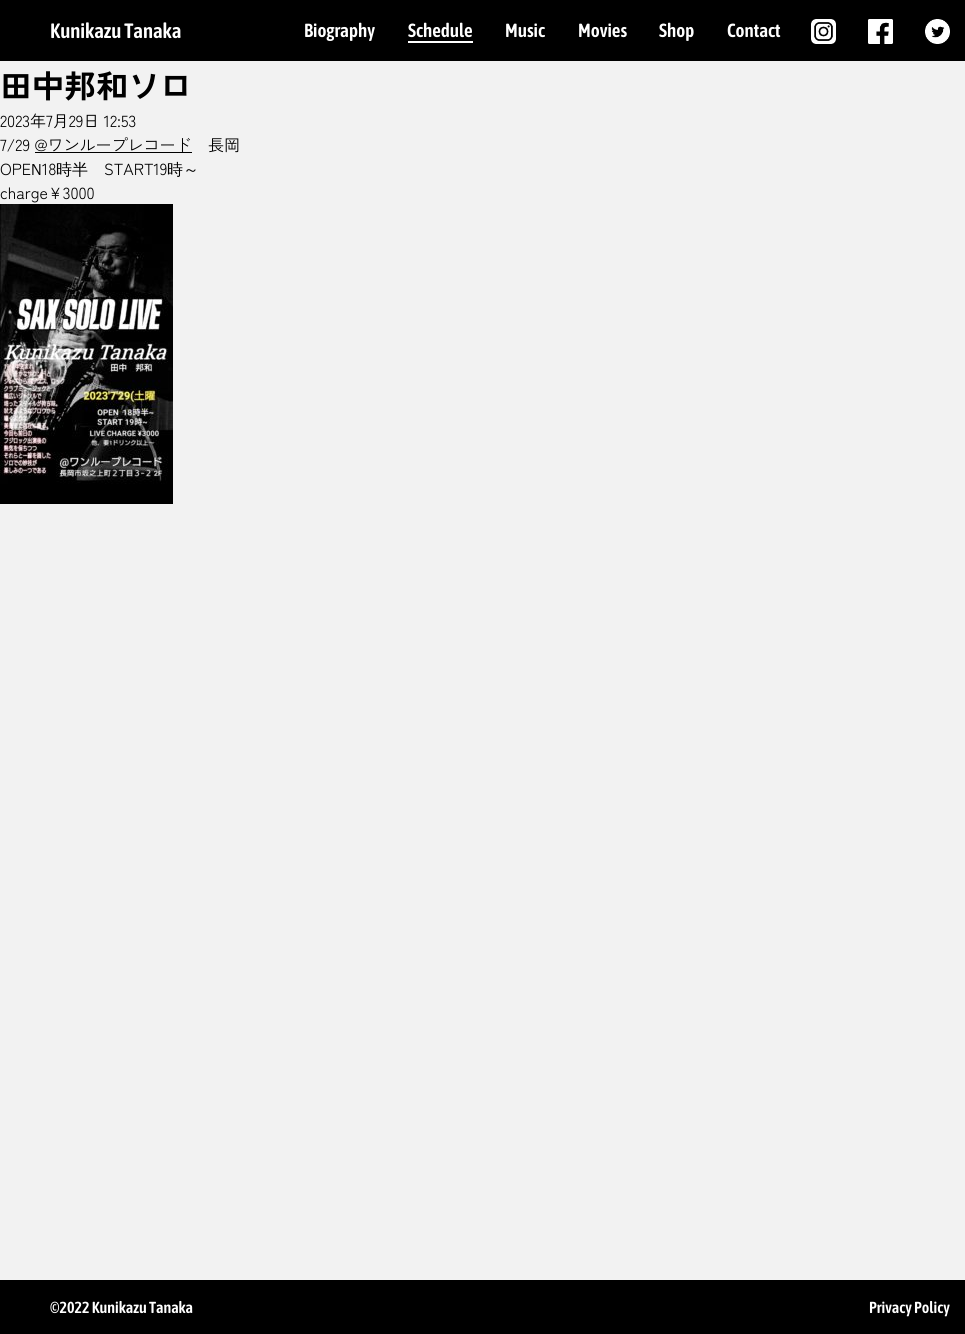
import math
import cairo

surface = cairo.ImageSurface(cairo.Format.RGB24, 965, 1334)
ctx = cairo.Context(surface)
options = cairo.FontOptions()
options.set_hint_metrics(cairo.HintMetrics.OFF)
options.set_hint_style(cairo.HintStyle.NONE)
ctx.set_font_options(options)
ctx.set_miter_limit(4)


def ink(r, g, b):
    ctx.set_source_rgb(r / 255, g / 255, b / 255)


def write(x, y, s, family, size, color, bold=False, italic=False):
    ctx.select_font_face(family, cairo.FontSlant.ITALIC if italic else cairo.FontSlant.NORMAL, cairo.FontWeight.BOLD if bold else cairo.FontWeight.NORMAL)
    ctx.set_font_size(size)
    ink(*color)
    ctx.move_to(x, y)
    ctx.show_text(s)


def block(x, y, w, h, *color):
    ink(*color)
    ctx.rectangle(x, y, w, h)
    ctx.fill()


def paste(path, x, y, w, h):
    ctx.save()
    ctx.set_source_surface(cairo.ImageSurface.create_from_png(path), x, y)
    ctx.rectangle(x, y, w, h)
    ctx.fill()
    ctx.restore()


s1 = dict(family="Asap Condensed SemiBold", size=20.75, color=(255, 255, 255))
s2 = dict(family="Asap Condensed SemiBold", size=19, color=(255, 255, 255))
s3 = dict(family="Zen Kaku Gothic Antique", size=32, color=(0, 0, 0), bold=True)
s4 = dict(family="Zen Kaku Gothic Antique", size=16, color=(0, 0, 0))
s5 = dict(family="WenQuanYi Zen Hei Medium", size=16, color=(0, 0, 0))
s6 = dict(family="Asap Condensed SemiBold", size=16, color=(255, 255, 255))

ink(242, 242, 242)
ctx.paint()
block(0, 0, 965, 61, 0, 0, 0)
write(50, 38, "Kunikazu Tanaka", **s1)
write(304, 37, "Biography", **s2)
write(408, 37, "Schedule", **s2)
block(408, 41, 65, 2, 255, 255, 255)
write(505, 37, "Music", **s2)
write(578, 37, "Movies", **s2)
write(659, 37, "Shop", **s2)
write(727, 37, "Contact", **s2)
paste("pic1.png", 811, 19, 25, 25)
paste("pic2.png", 868, 19, 25, 25)
paste("pic3.png", 925, 19, 25, 25)
write(0, 98, "田中邦和ソロ", **s3)
write(0, 127, "2023年7月29日 12:53", **s4)
write(0, 151, "7/29 @ワンループレコード", **s4)
write(208, 151, "長岡", **s4)
block(35, 152, 157, 1, 0, 0, 0)
write(0, 175, "OPE", **s4)
write(31, 175, "N", **s5)
write(42, 175, "18", **s4)
write(56, 175, "時半", **s5)
write(104, 175, "START19", **s4)
write(167, 175, "時～", **s5)
write(0, 199, "charge¥3000", **s4)
paste("pic4.png", 0, 204, 173, 300)
block(0, 1280, 965, 54, 0, 0, 0)
write(50, 1313, "©2022 Kunikazu Tanaka", **s6)
write(869, 1313, "Privacy Policy", **s6)
surface.write_to_png("screenshot.png")
